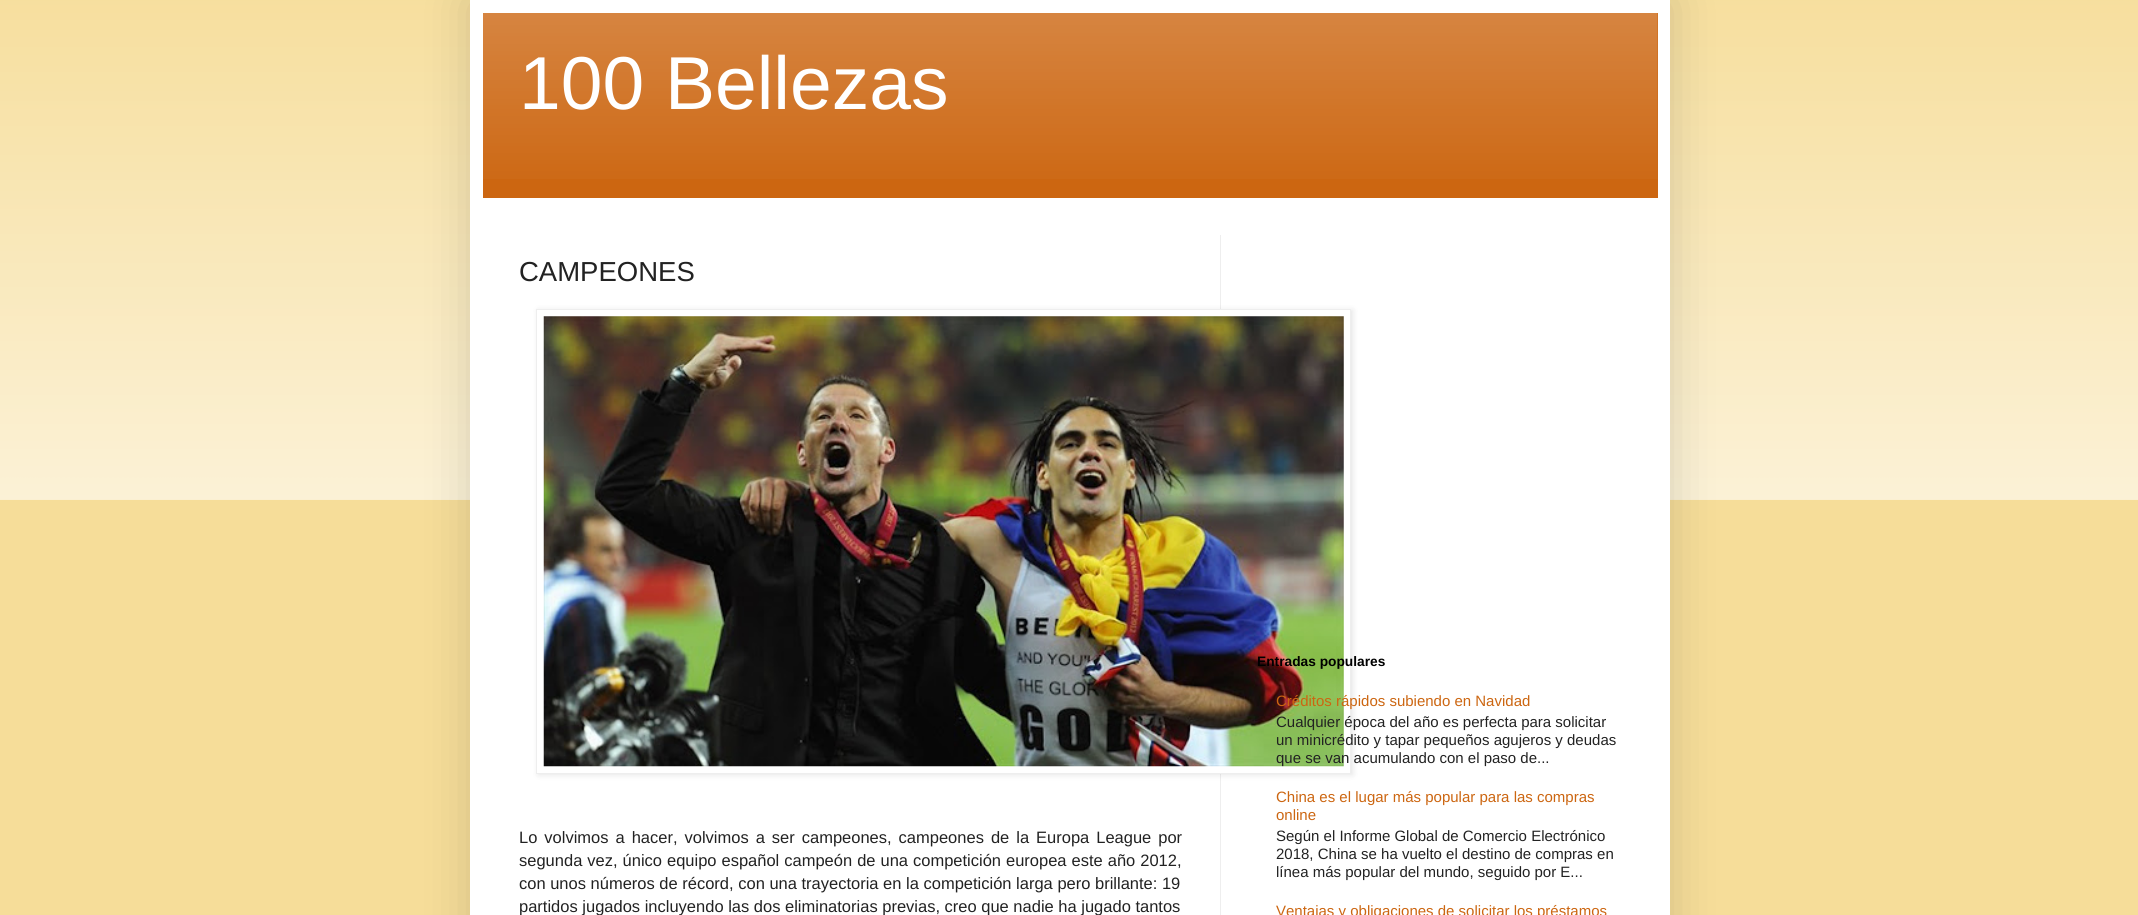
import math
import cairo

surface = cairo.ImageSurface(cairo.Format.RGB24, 2138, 915)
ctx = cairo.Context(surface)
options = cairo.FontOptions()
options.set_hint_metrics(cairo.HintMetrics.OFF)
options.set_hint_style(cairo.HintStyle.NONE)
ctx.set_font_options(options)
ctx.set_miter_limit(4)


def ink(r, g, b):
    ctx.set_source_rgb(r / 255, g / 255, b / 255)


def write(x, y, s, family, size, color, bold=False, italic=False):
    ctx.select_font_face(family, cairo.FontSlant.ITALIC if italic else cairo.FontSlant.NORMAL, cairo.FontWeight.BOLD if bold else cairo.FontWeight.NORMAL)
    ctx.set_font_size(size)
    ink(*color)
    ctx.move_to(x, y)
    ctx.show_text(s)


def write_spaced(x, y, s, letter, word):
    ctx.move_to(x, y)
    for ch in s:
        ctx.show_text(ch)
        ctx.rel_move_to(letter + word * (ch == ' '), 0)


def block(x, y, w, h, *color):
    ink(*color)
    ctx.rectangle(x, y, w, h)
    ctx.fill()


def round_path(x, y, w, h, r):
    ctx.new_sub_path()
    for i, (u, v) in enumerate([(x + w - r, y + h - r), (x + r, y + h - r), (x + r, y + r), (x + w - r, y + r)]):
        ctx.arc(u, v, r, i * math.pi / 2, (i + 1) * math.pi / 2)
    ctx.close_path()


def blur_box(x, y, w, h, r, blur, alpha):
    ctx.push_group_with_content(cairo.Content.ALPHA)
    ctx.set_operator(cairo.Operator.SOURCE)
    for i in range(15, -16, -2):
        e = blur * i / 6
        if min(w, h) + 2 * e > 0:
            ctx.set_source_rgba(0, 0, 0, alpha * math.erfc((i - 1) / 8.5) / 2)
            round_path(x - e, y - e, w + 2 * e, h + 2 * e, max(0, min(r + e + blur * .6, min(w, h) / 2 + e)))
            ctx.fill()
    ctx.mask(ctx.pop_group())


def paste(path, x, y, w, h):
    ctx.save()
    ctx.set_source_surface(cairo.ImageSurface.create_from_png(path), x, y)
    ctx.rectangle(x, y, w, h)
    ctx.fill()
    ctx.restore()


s1 = dict(family="Liberation Sans", size=75, color=(255, 255, 255))
s2 = dict(family="Liberation Sans", size=27.5, color=(34, 34, 34))
s3 = dict(family="Liberation Sans", size=16.5, color=(34, 34, 34))
s4 = dict(family="Liberation Sans", size=13.75, color=(0, 0, 0), bold=True)
s5 = dict(family="Liberation Sans", size=15, color=(204, 102, 17))
s6 = dict(family="Liberation Sans", size=15, color=(34, 34, 34))

ink(246, 221, 153)
ctx.paint()
paste("pic1.png", 0, 0, 2138, 500)
ink(0, 0, 0)
blur_box(470, 0, 1200, 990, 0, 25, 0.15)
block(470, 0, 1200, 915, 255, 255, 255)
block(483, 13, 1175, 185, 204, 102, 17)
paste("pic2.png", 483, 13, 1175, 166)
write(519, 109, "100 Bellezas", **s1)
block(1220, 235, 1, 680, 238, 238, 238)
write(519, 281, "CAMPEONES", **s2)
ink(0, 0, 0)
blur_box(538, 310, 815, 465, 0, 3, 0.1)
ink(255, 255, 255)
ctx.rectangle(536.5, 309.5, 814, 464)
ctx.fill_preserve()
ink(238, 238, 238)
ctx.set_line_width(1)
ctx.stroke()
paste("pic3.png", 543, 316, 801, 451)
ctx.set_font_size(16.5)
ink(34, 34, 34)
write_spaced(519, 843, "Lo volvimos a hacer, volvimos a ser campeones, campeones de la Europa League por", 0, 2.4)
write_spaced(519, 866, "segunda vez, único equipo español campeón de una competición europea este año 2012,", 0, 0.4)
write(519, 889, "con unos números de récord, con una trayectoria en la competición larga pero brillante: 19", **s3)
write(519, 912, "partidos jugados incluyendo las dos eliminatorias previas, creo que nadie ha jugado tantos", **s3)
write(1257, 666, "Entradas populares", **s4)
write(1276, 706, "Créditos rápidos subiendo en Navidad", **s5)
write(1276, 727, "Cualquier época del año es perfecta para solicitar", **s6)
write(1276, 745, "un minicrédito y tapar pequeños agujeros y deudas", **s6)
write(1276, 763, "que se van acumulando con el paso de...", **s6)
write(1276, 802, "China es el lugar más popular para las compras", **s5)
write(1276, 820, "online", **s5)
write(1276, 841, "Según el Informe Global de Comercio Electrónico", **s6)
write(1276, 859, "2018, China se ha vuelto el destino de compras en", **s6)
write(1276, 877, "línea más popular del mundo, seguido por E...", **s6)
write(1276, 916, "Ventajas y obligaciones de solicitar los préstamos", **s5)
surface.write_to_png("screenshot.png")
